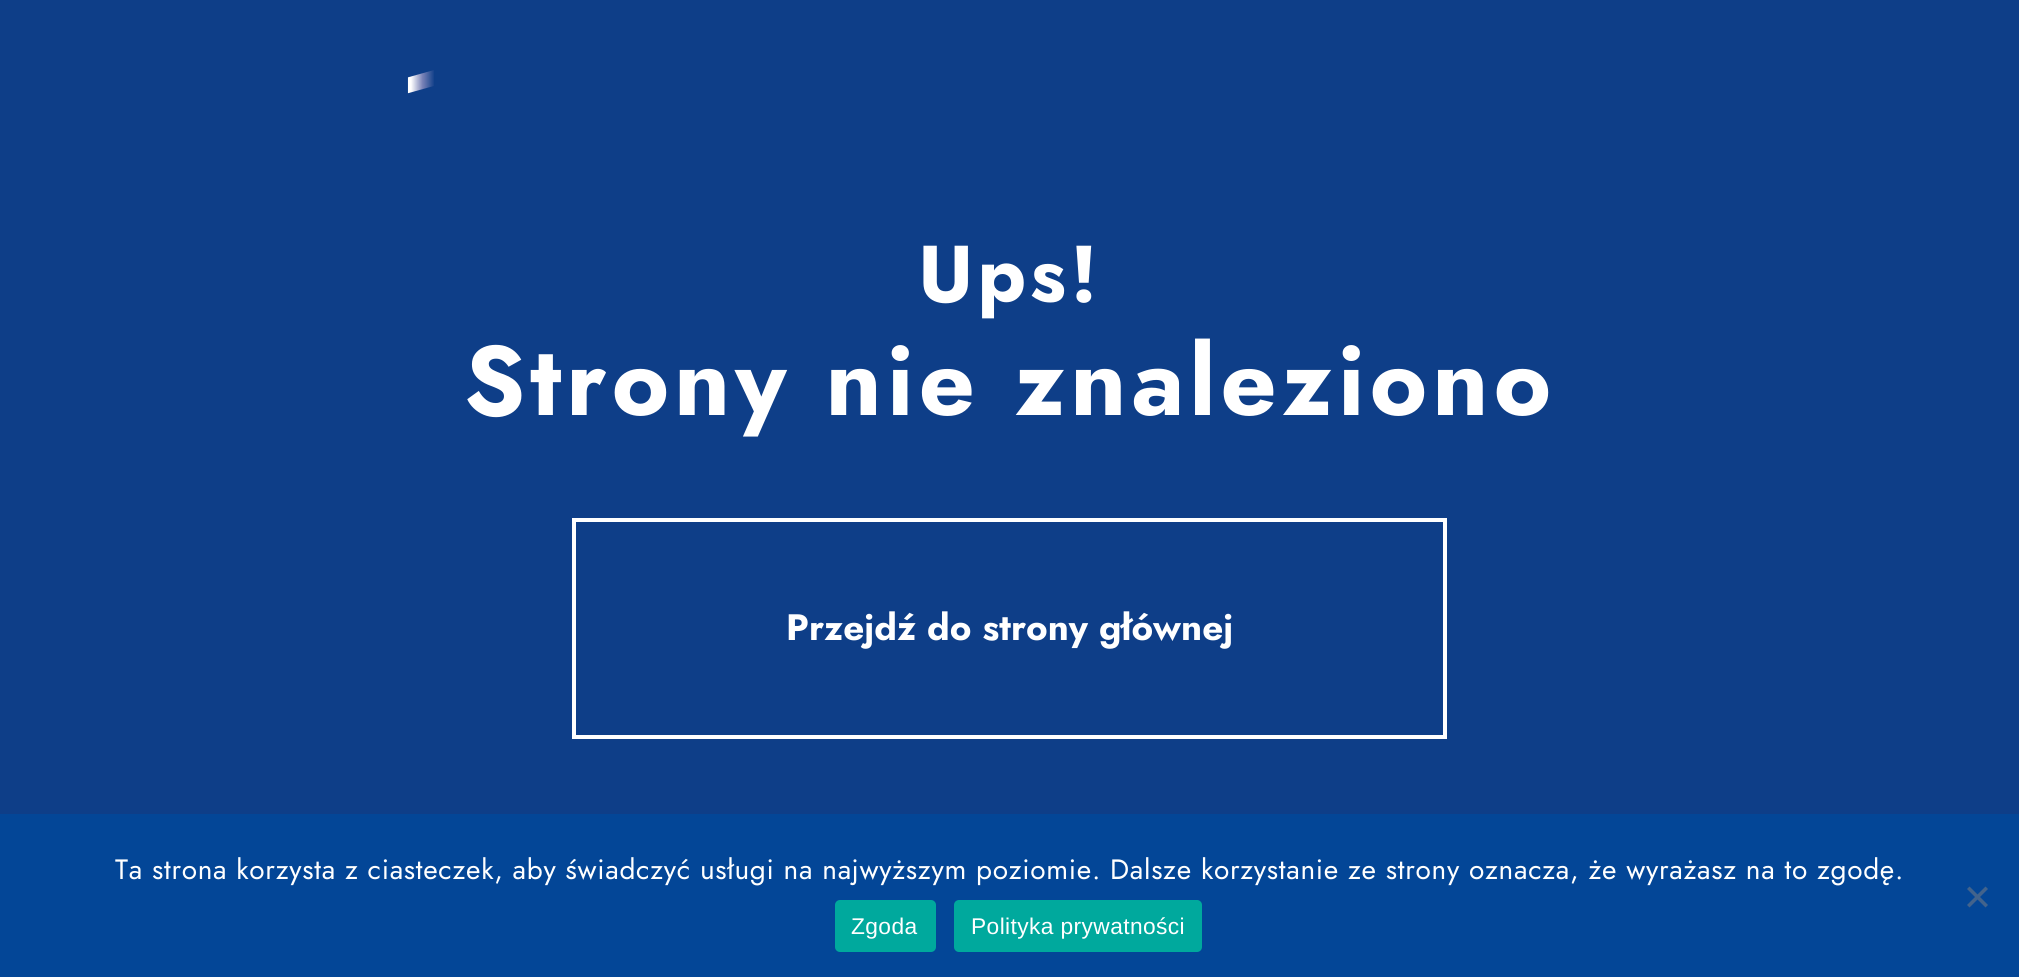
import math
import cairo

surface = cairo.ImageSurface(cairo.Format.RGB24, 2019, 977)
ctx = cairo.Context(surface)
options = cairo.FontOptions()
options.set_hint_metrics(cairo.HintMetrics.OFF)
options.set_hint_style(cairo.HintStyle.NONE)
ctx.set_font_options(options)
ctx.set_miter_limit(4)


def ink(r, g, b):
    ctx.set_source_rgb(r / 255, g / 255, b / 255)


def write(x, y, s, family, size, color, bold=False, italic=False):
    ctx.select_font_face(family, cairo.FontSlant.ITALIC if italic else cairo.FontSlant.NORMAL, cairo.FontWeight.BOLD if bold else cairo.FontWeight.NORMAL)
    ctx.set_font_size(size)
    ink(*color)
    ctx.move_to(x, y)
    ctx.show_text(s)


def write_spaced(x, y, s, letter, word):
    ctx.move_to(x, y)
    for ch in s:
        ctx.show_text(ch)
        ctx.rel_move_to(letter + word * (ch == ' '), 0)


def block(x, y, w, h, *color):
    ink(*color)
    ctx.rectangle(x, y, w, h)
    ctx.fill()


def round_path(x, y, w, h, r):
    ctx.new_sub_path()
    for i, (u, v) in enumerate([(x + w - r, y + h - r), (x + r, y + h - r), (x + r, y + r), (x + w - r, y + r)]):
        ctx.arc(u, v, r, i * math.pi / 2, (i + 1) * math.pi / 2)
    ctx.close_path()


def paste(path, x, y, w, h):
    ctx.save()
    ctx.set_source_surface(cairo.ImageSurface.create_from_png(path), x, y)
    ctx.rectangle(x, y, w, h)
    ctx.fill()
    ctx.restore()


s1 = dict(family="Jost", size=36.75, color=(255, 255, 255), bold=True)

ink(14, 62, 136)
ctx.paint()
paste("pic1.png", 407, 70, 27, 24)
ctx.select_font_face("Jost", cairo.FontSlant.NORMAL, cairo.FontWeight.BOLD)
ctx.set_font_size(79)
ink(255, 255, 255)
write_spaced(918, 301, "Ups!", 4, 0)
ctx.set_font_size(98)
write_spaced(464, 415, "Strony nie znaleziono", 4.9, 0)
ctx.rectangle(574, 520, 871, 217)
ctx.set_line_width(4)
ctx.stroke()
write(786, 640, "Przejdź do strony głównej", **s1)
block(0, 814, 2019, 163, 3, 70, 151)
ctx.select_font_face("Jost")
ctx.set_font_size(28)
ink(255, 255, 255)
write_spaced(115, 879, "Ta strona korzysta z ciasteczek, aby świadczyć usługi na najwyższym poziomie. Dalsze korzystanie ze strony oznacza, że wyrażasz na to zgodę.", 0.7, 0)
ink(66, 99, 140)
ctx.new_path()
ctx.move_to(1985.5, 886.5)
ctx.line_to(1988, 889)
ctx.line_to(1969.5, 907.5)
ctx.line_to(1967, 905)
ctx.close_path()
ctx.fill()
ctx.new_path()
ctx.move_to(1967, 889)
ctx.line_to(1969.5, 886.5)
ctx.line_to(1988, 905)
ctx.line_to(1985.5, 907.5)
ctx.close_path()
ctx.fill()
ink(0, 169, 157)
round_path(835, 900, 101, 52, 5)
ctx.fill()
ctx.select_font_face("Liberation Sans")
ctx.set_font_size(22.75)
ink(255, 255, 255)
write_spaced(851, 934, "Zgoda", 0.4, 0)
ink(0, 169, 157)
round_path(954, 900, 248, 52, 5)
ctx.fill()
ink(255, 255, 255)
write_spaced(971, 934, "Polityka prywatności", 0.4, 0)
surface.write_to_png("screenshot.png")
